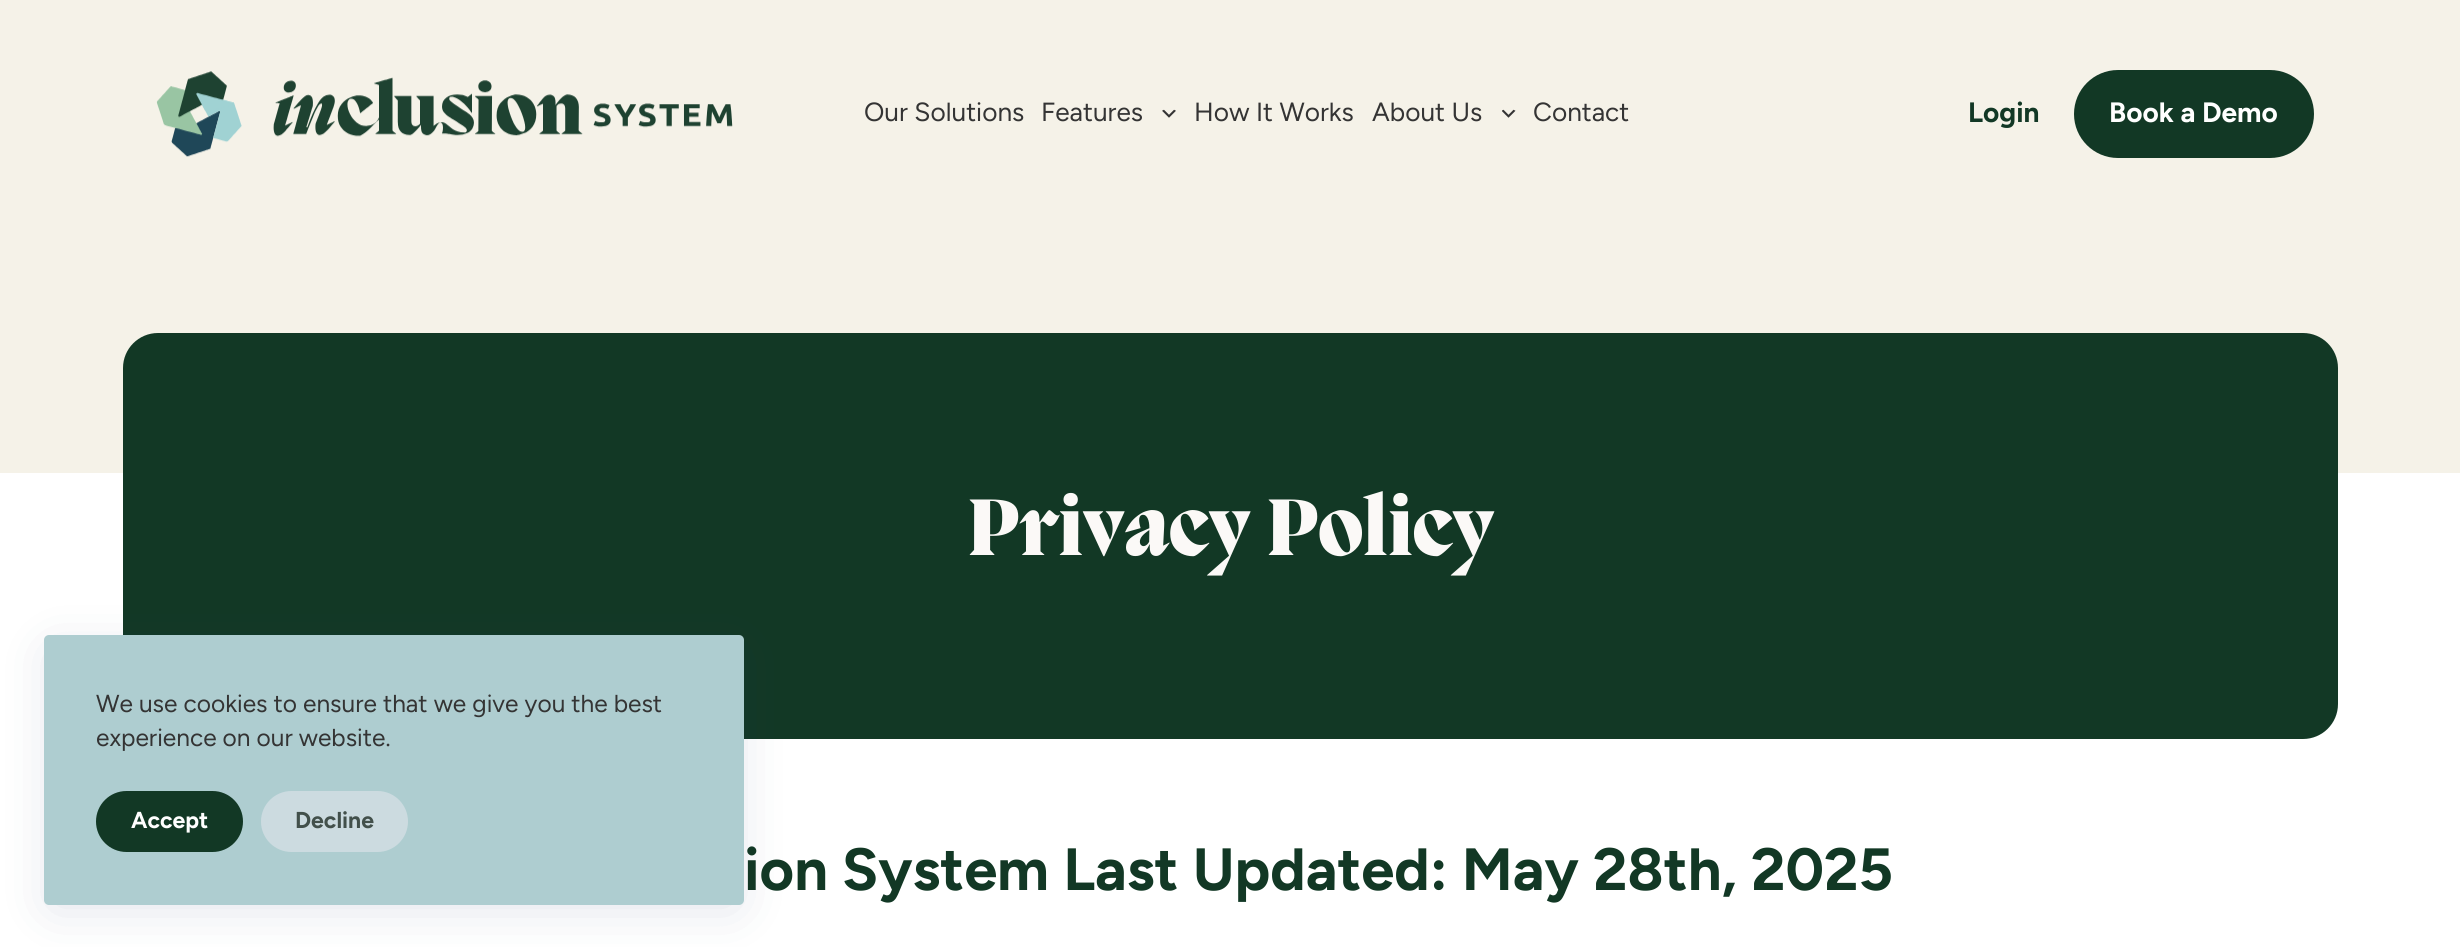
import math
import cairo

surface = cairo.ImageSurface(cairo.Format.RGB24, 2460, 947)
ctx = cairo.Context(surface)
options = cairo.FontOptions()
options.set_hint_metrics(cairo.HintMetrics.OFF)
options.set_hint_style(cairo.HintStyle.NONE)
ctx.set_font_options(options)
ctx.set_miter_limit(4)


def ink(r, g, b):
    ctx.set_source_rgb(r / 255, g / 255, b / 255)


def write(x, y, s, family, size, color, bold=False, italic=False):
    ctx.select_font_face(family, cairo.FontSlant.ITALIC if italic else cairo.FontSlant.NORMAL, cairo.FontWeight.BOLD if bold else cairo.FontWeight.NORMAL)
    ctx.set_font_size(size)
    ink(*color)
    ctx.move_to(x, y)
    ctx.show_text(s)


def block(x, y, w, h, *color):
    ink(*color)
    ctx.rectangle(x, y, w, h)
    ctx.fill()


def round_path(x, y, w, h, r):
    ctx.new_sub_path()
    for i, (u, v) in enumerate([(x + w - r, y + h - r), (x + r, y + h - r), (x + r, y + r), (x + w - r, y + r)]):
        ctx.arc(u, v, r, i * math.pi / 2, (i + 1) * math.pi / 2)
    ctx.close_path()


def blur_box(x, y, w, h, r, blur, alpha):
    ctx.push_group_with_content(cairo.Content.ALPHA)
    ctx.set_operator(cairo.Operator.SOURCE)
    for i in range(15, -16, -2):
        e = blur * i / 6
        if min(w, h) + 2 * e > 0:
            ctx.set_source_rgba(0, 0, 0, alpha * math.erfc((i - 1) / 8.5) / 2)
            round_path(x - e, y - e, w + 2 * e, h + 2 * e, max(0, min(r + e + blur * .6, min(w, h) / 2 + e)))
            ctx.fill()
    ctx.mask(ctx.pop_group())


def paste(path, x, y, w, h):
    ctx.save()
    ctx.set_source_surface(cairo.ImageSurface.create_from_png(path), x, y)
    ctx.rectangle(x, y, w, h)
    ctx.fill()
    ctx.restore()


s1 = dict(family="Figtree", size=24.5, color=(52, 52, 52))
s2 = dict(family="Figtree", size=23, color=(255, 255, 255), bold=True)
s3 = dict(family="Figtree", size=23, color=(66, 80, 75), bold=True)
s4 = dict(family="Figtree", size=26.25, color=(52, 52, 52))
s5 = dict(family="Figtree", size=28, color=(18, 56, 37), bold=True)
s6 = dict(family="Figtree", size=28, color=(255, 255, 255), bold=True)
s7 = dict(family="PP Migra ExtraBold", size=82.25, color=(251, 249, 247))
s8 = dict(family="Figtree", size=59.5, color=(18, 56, 37), bold=True)

ink(255, 255, 255)
ctx.paint()
block(0, 0, 2460, 473, 245, 242, 232)
ink(18, 56, 37)
round_path(123, 333, 2215, 406, 35)
ctx.fill()
ink(34, 56, 101)
blur_box(53, 653, 682, 252, 0, 26, 0.15)
ink(174, 205, 208)
round_path(44, 635, 700, 270, 5)
ctx.fill()
write(96, 712, "We use cookies to ensure that we give you the best", **s1)
write(96, 746, "experience on our website.", **s1)
ink(18, 56, 37)
round_path(96, 791, 147, 61, 30.5)
ctx.fill()
write(131, 828, "Accept", **s2)
ink(204, 219, 224)
round_path(261, 791, 147, 61, 30.5)
ctx.fill()
write(295, 828, "Decline", **s3)
paste("pic1.png", 156, 71, 577, 86)
write(864, 121, "Our Solutions", **s4)
write(1041, 121, "Features", **s4)
paste("pic2.png", 1162, 109, 14, 9)
write(1194, 121, "How It Works", **s4)
write(1372, 121, "About Us", **s4)
paste("pic3.png", 1502, 109, 14, 9)
write(1533, 121, "Contact", **s4)
write(1968, 122, "Login", **s5)
round_path(2074, 70, 240, 88, 44)
ctx.fill()
write(2109, 122, "Book a Demo", **s6)
write(967, 555, "Privacy Policy", **s7)
write(744, 890, "ion System Last Updated: May 28th, 2025", **s8)
surface.write_to_png("screenshot.png")
